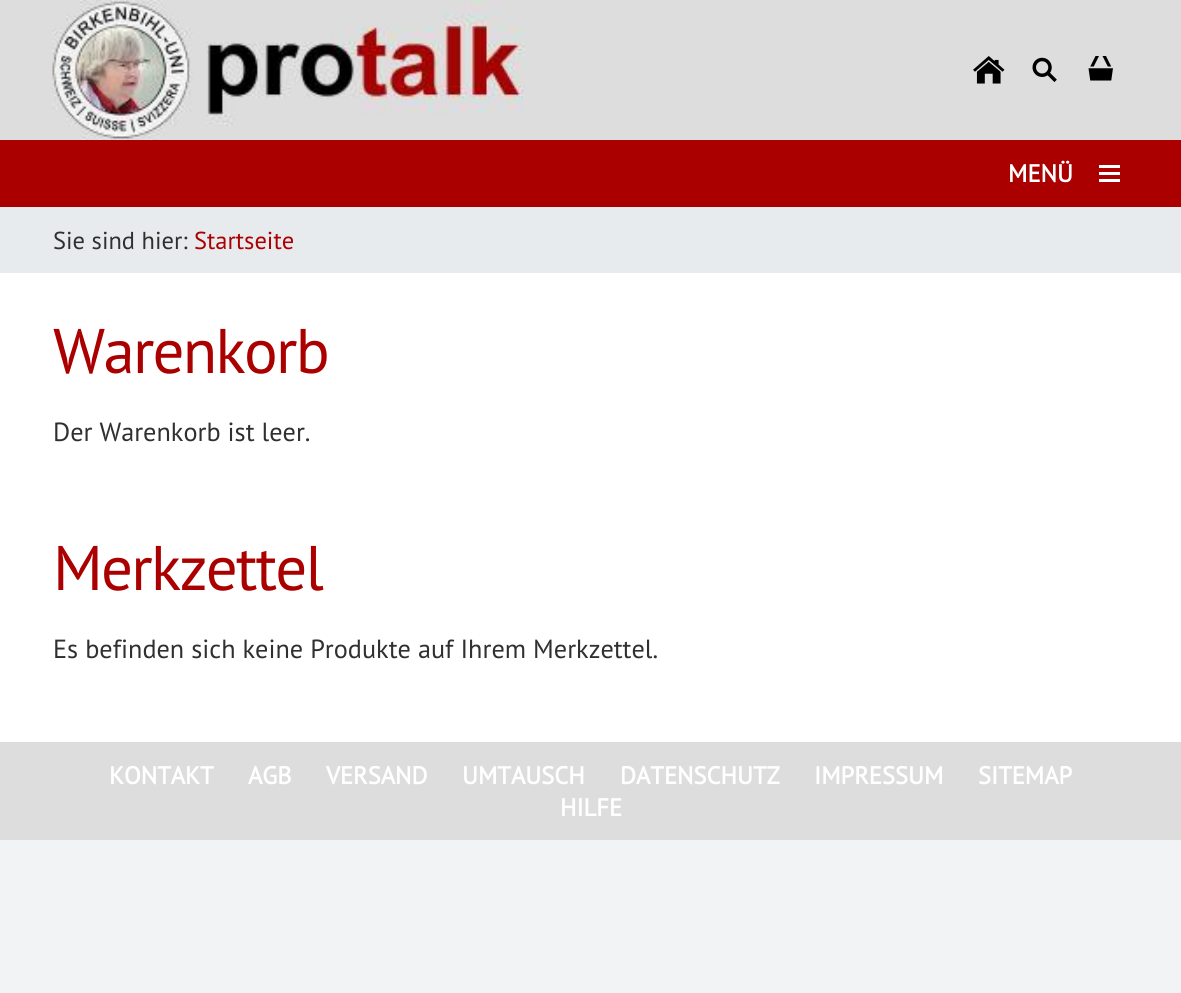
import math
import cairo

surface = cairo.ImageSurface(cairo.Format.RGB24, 1181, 993)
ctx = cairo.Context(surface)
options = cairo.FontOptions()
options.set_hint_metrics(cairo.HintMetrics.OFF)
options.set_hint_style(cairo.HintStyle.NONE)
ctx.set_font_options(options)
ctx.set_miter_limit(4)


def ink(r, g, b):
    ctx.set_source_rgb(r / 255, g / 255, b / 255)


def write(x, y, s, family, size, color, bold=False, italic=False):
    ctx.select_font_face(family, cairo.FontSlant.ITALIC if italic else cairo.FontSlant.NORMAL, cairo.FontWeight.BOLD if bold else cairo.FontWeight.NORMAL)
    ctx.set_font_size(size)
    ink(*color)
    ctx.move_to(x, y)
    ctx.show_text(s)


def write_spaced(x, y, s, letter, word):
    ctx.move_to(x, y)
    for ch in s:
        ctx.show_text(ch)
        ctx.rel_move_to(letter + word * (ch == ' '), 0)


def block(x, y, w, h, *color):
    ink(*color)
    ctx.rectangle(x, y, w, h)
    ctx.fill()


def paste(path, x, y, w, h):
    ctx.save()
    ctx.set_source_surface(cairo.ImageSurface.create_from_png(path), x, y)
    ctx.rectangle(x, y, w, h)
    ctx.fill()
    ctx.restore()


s1 = dict(family="PT Sans", size=24.5, color=(255, 255, 255), bold=True)
s2 = dict(family="PT Sans", size=24.5, color=(48, 48, 48))
s3 = dict(family="PT Sans", size=24.5, color=(171, 0, 0))
s4 = dict(family="PT Sans", size=26.25, color=(48, 48, 48))

ink(242, 243, 244)
ctx.paint()
block(0, 0, 1181, 140, 221, 221, 221)
paste("pic1.png", 52, 0, 473, 140)
paste("pic2.png", 973, 56, 32, 28)
paste("pic3.png", 1032, 57, 25, 25)
paste("pic4.png", 1088, 56, 25, 25)
block(0, 140, 1181, 67, 171, 0, 0)
block(1099, 179, 21, 3, 255, 255, 255)
block(1099, 172, 21, 3, 255, 255, 255)
block(1099, 165, 21, 3, 255, 255, 255)
write(1008, 182, "MENÜ", **s1)
block(0, 207, 1181, 66, 232, 235, 237)
write(53, 249, "Sie sind hier:", **s2)
write(194, 249, "Startseite", **s3)
block(0, 273, 1181, 469, 255, 255, 255)
ctx.set_font_size(63)
ink(171, 0, 0)
write_spaced(53, 373, "Warenkorb", -1.75, 0)
write(53, 441, "Der Warenkorb ist leer.", **s4)
ctx.set_font_size(63)
ink(171, 0, 0)
write_spaced(53, 590, "Merkzettel", -1.75, 0)
write(53, 658, "Es befinden sich keine Produkte auf Ihrem Merkzettel.", **s4)
block(0, 742, 1181, 98, 221, 221, 221)
write(109, 784, "KONTAKT", **s1)
write(248, 784, "AGB", **s1)
write(326, 784, "VERSAND", **s1)
write(462, 784, "UMTAUSCH", **s1)
write(620, 784, "DATENSCHUTZ", **s1)
write(814, 784, "IMPRESSUM", **s1)
write(978, 784, "SITEMAP", **s1)
write(560, 816, "HILFE", **s1)
surface.write_to_png("screenshot.png")
